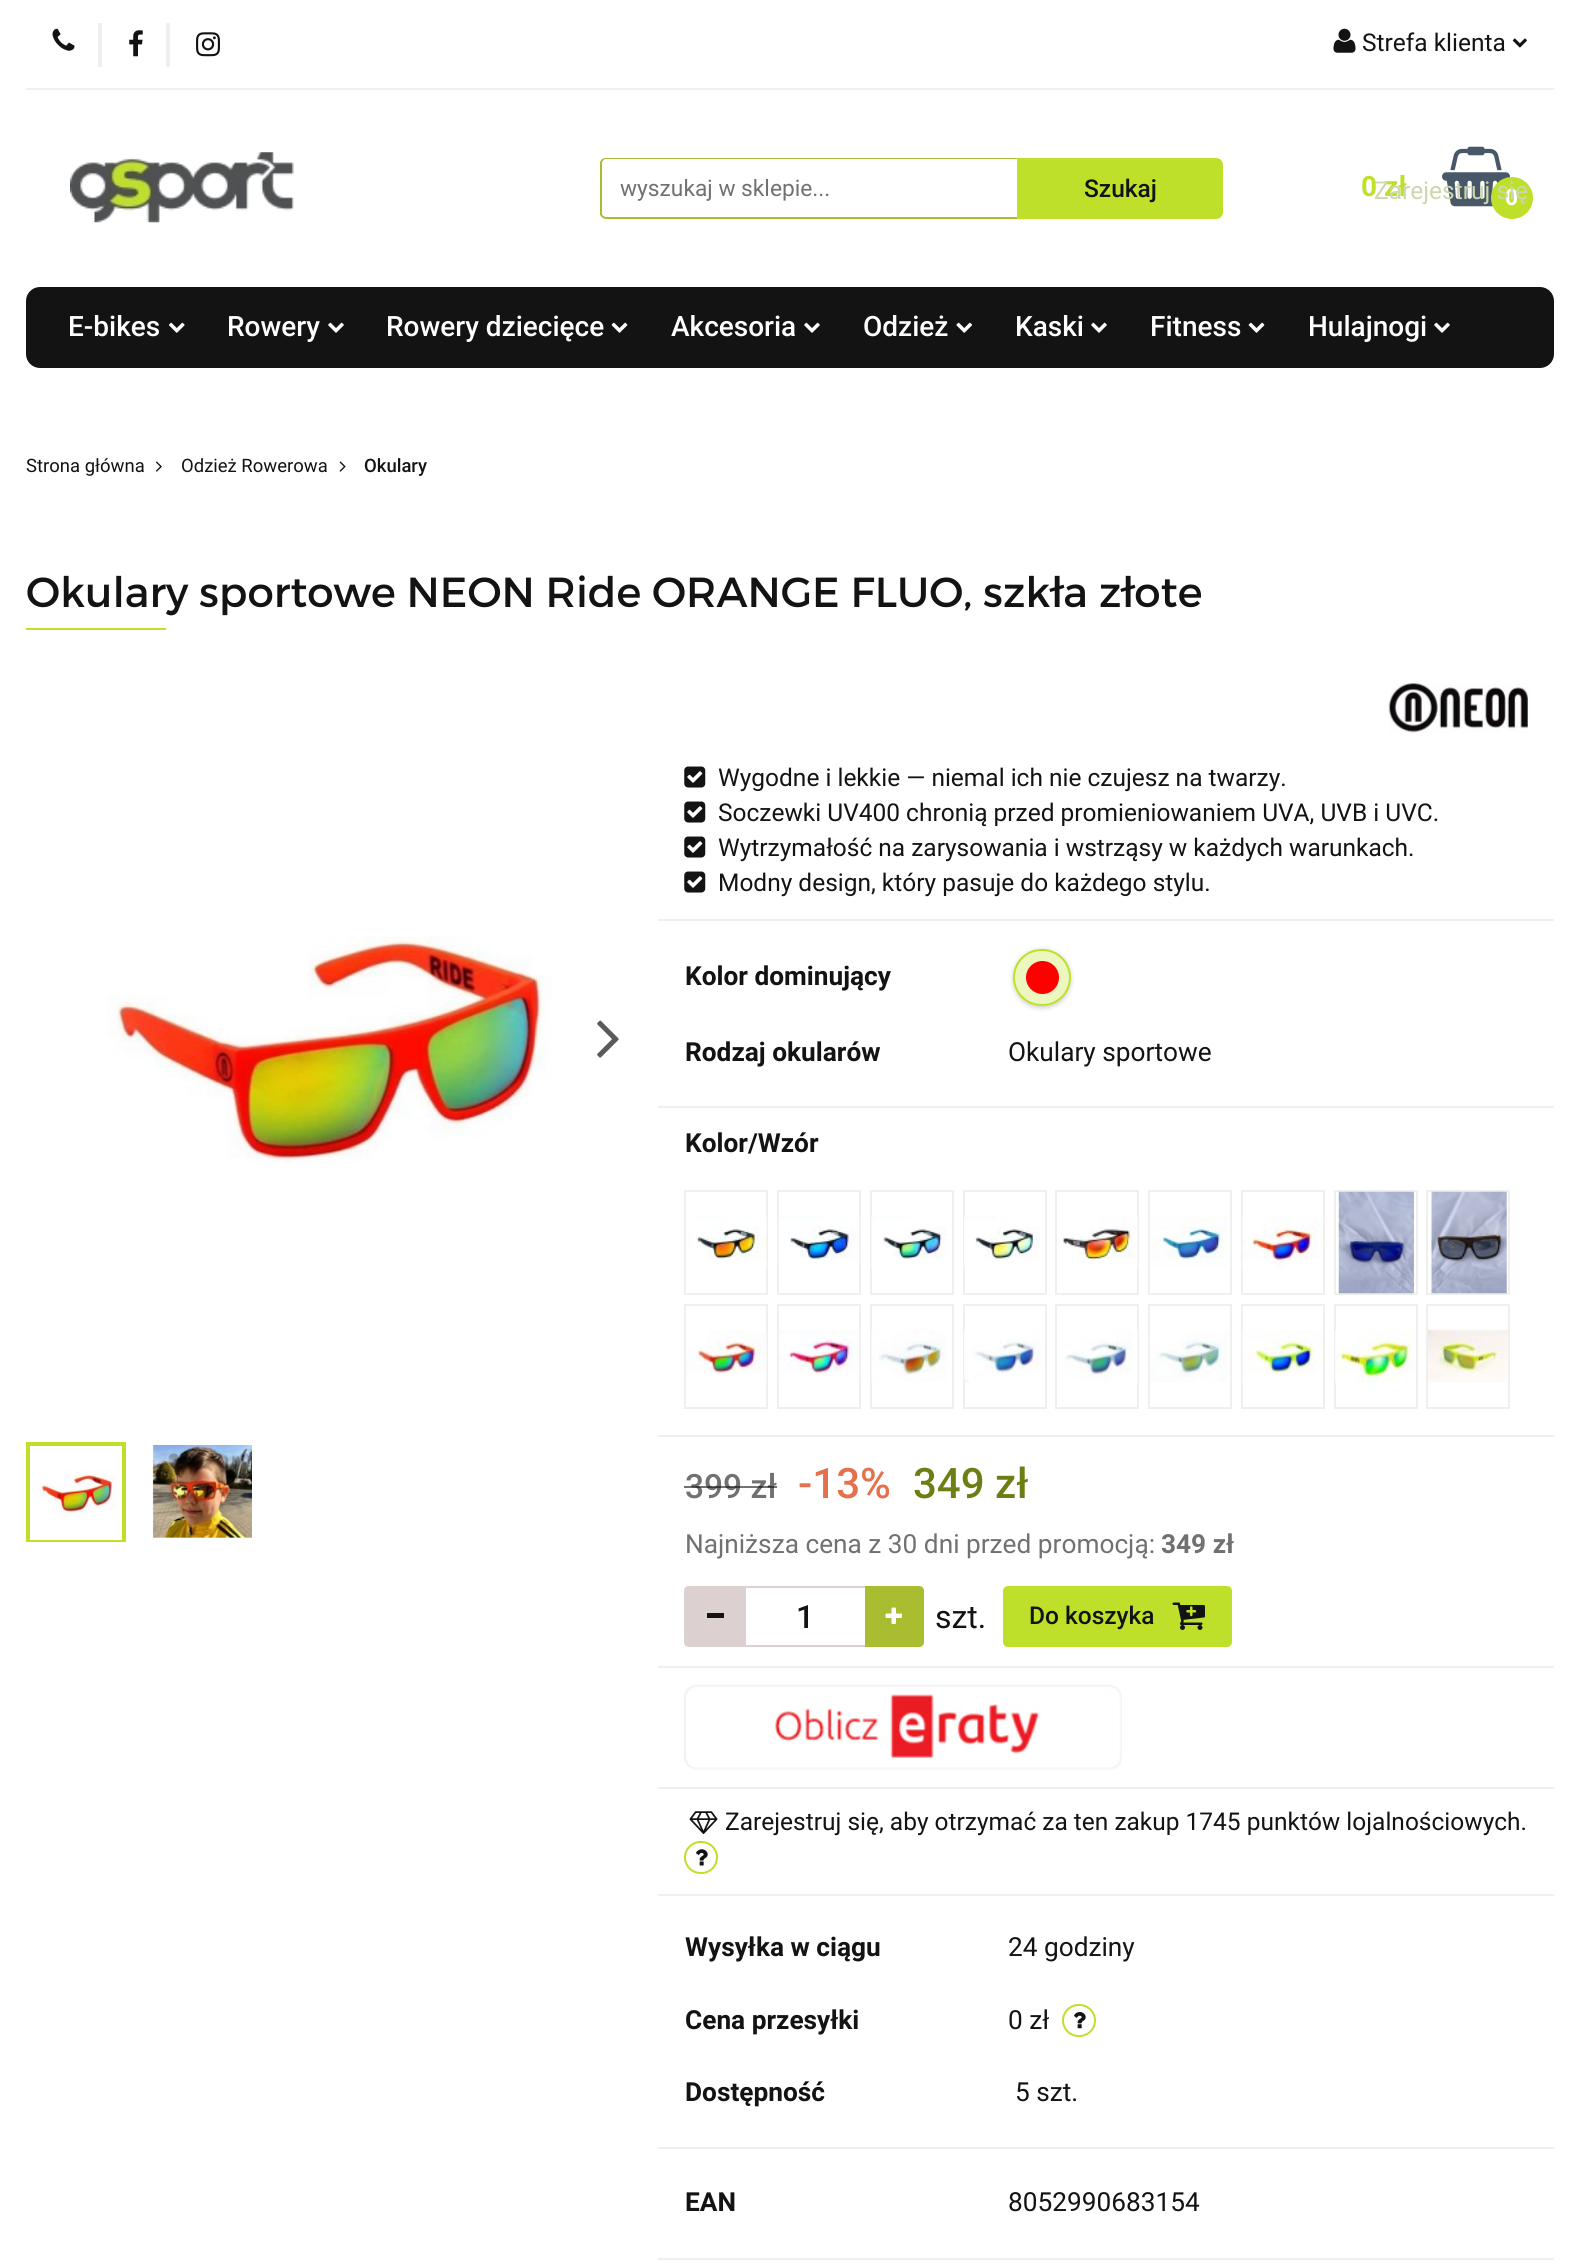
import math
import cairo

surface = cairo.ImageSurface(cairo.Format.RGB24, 1579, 2263)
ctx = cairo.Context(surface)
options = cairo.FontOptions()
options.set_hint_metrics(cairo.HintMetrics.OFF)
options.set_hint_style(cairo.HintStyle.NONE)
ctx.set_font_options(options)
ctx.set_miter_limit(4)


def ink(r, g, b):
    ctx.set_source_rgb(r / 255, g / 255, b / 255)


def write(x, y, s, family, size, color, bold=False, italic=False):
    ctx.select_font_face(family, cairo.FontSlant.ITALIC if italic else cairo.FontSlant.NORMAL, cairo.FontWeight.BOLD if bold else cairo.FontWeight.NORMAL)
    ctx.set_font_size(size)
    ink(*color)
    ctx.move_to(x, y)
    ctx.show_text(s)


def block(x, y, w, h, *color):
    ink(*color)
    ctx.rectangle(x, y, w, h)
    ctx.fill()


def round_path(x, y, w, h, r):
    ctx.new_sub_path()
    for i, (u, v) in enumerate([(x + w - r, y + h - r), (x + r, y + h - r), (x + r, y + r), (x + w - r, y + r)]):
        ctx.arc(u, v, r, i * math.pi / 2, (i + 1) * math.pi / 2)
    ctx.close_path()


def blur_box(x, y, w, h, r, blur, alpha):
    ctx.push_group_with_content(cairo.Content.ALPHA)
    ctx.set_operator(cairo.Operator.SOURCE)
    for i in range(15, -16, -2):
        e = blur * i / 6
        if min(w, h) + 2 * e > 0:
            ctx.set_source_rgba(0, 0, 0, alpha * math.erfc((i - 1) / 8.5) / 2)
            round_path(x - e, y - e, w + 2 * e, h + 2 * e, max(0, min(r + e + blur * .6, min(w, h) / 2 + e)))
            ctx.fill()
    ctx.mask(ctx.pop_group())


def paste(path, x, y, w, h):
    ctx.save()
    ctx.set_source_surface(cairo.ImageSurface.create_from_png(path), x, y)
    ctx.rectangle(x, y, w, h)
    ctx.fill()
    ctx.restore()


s1 = dict(family="Roboto", size=24.5, color=(19, 19, 19))
s2 = dict(family="Roboto", size=28, color=(191, 224, 43), bold=True)
s3 = dict(family="Roboto", size=22.75, color=(255, 255, 255), bold=True)
s4 = dict(family="Roboto", size=24.5, color=(204, 215, 173))
s5 = dict(family="Roboto", size=22.75, color=(113, 113, 113))
s6 = dict(family="Roboto Medium", size=24.5, color=(19, 19, 19))
s7 = dict(family="Roboto Medium", size=28, color=(255, 255, 255))
s8 = dict(family="Roboto", size=18.5, color=(19, 19, 19))
s9 = dict(family="Roboto Medium", size=18.5, color=(19, 19, 19))
s10 = dict(family="Montserrat", size=42, color=(19, 19, 19))
s11 = dict(family="Roboto", size=26.25, color=(19, 19, 19), bold=True)
s12 = dict(family="Roboto", size=26.25, color=(19, 19, 19))
s13 = dict(family="Roboto Medium", size=33.5, color=(113, 113, 113))
s14 = dict(family="Roboto Medium", size=42, color=(228, 113, 76))
s15 = dict(family="Roboto Medium", size=42, color=(109, 127, 20))
s16 = dict(family="Roboto", size=26.25, color=(113, 113, 113))
s17 = dict(family="Roboto", size=26.25, color=(113, 113, 113), bold=True)
s18 = dict(family="Roboto Medium", size=32, color=(19, 19, 19))
s19 = dict(family="Roboto", size=32, color=(19, 19, 19))

ink(255, 255, 255)
ctx.paint()
block(26, 88, 1528, 2, 239, 239, 239)
paste("pic1.png", 52, 28, 23, 23)
block(98, 23, 4, 44, 239, 239, 239)
paste("pic2.png", 129, 30, 14, 27)
block(166, 23, 4, 44, 239, 239, 239)
paste("pic3.png", 196, 32, 24, 25)
paste("pic4.png", 1333, 28, 23, 25)
write(1362, 51, "Strefa klienta", **s1)
paste("pic5.png", 1512, 38, 15, 10)
write(1361, 196, "0 zł", **s2)
paste("pic7.png", 1442, 146, 68, 61)
ctx.arc(1512, 198, 21, 0, 2 * math.pi)
ctx.fill()
write(1505, 205, "0", **s3)
write(1374, 199, "Zarejestruj się", **s4)
paste("pic6.png", 70, 152, 224, 71)
ink(170, 188, 48)
ctx.set_fill_rule(cairo.FillRule.EVEN_ODD)
ctx.new_path()
ctx.move_to(606, 158)
ctx.line_to(1017, 158)
ctx.line_to(1017, 219)
ctx.line_to(606, 219)
ctx.curve_to(603, 219, 600, 216, 600, 214)
ctx.line_to(600, 163)
ctx.curve_to(600, 160, 603, 158, 606, 158)
ctx.close_path()
ctx.move_to(606, 159)
ctx.line_to(1017, 159)
ctx.line_to(1017, 217)
ctx.line_to(606, 217)
ctx.curve_to(604, 217, 602, 215, 602, 214)
ctx.line_to(602, 163)
ctx.curve_to(602, 161, 604, 159, 606, 159)
ctx.close_path()
ctx.fill()
write(620, 196, "wyszukaj w sklepie...", **s5)
ink(191, 224, 43)
ctx.new_path()
ctx.move_to(1019.5, 160.5)
ctx.line_to(1216, 160.5)
ctx.curve_to(1218.5, 160.5, 1220.5, 162.5, 1220.5, 165)
ctx.line_to(1220.5, 212)
ctx.curve_to(1220.5, 214.5, 1218.5, 216.5, 1216, 216.5)
ctx.line_to(1019.5, 216.5)
ctx.close_path()
ctx.fill_preserve()
ctx.set_line_width(5)
ctx.stroke()
write(1084, 197, "Szukaj", **s6)
round_path(26, 287, 1528, 81, 14)
ctx.fill()
write(68, 336, "E-bikes", **s7)
paste("pic8.png", 168, 322, 17, 11)
write(227, 336, "Rowery", **s7)
paste("pic9.png", 328, 322, 16, 11)
write(386, 336, "Rowery dziecięce", **s7)
paste("pic10.png", 611, 322, 17, 11)
write(671, 336, "Akcesoria", **s7)
paste("pic9.png", 804, 322, 16, 11)
write(863, 336, "Odzież", **s7)
paste("pic11.png", 956, 322, 17, 11)
write(1015, 336, "Kaski", **s7)
paste("pic9.png", 1091, 322, 16, 11)
write(1150, 336, "Fitness", **s7)
paste("pic10.png", 1248, 322, 17, 11)
write(1308, 336, "Hulajnogi", **s7)
paste("pic9.png", 1434, 322, 16, 11)
write(26, 472, "Strona główna", **s8)
paste("pic12.png", 155, 461, 7, 11)
write(181, 472, "Odzież Rowerowa", **s8)
paste("pic13.png", 339, 461, 7, 11)
write(364, 472, "Okulary", **s9)
write(26, 607, "Okulary sportowe NEON Ride ORANGE FLUO, szkła złote", **s10)
block(26, 628, 140, 2, 191, 224, 43)
paste("pic14.png", 107, 935, 445, 229)
paste("pic15.png", 597, 1020, 22, 38)
paste("pic16.png", 40, 1470, 77, 46)
ctx.save()
ctx.set_fill_rule(cairo.FillRule.WINDING)
ctx.rectangle(26, 1442, 606, 100)
ctx.clip()
ctx.rectangle(28, 1444, 96, 98)
ctx.set_line_width(4)
ctx.stroke()
ctx.restore()
paste("pic17.png", 152, 1445, 100, 93)
block(658, 919, 896, 2, 239, 239, 239)
paste("pic18.png", 1388, 683, 140, 50)
paste("pic19.png", 684, 766, 22, 22)
write(718, 786, "Wygodne i lekkie — niemal ich nie czujesz na twarzy.", **s1)
paste("pic19.png", 684, 801, 22, 22)
write(718, 821, "Soczewki UV400 chronią przed promieniowaniem UVA, UVB i UVC.", **s1)
paste("pic19.png", 684, 836, 22, 22)
write(718, 856, "Wytrzymałość na zarysowania i wstrząsy w każdych warunkach.", **s1)
paste("pic19.png", 684, 871, 22, 22)
write(718, 891, "Modny design, który pasuje do każdego stylu.", **s1)
block(658, 1106, 896, 2, 239, 239, 239)
write(685, 985, "Kolor dominujący", **s11)
ink(236, 246, 191)
round_path(1013, 949, 58, 57, 28.5)
ctx.fill()
ctx.save()
ctx.new_path()
ctx.move_to(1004, 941)
ctx.line_to(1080, 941)
ctx.line_to(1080, 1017)
ctx.line_to(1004, 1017)
ctx.close_path()
ctx.move_to(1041.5, 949)
ctx.line_to(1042.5, 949)
ctx.curve_to(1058, 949, 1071, 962, 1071, 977.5)
ctx.curve_to(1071, 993, 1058, 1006, 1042.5, 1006)
ctx.line_to(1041.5, 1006)
ctx.curve_to(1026, 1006, 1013, 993, 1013, 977.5)
ctx.curve_to(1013, 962, 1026, 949, 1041.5, 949)
ctx.close_path()
ctx.clip()
ink(0, 0, 0)
blur_box(1013, 950, 58, 58, 29, 2.5, 0.2)
ctx.restore()
round_path(1014, 950, 56, 55, 27.5)
ink(191, 224, 43)
ctx.set_line_width(2)
ctx.stroke()
ink(255, 0, 0)
ctx.arc(1042.5, 977.5, 16.5, 0, 2 * math.pi)
ctx.fill()
write(685, 1061, "Rodzaj okularów", **s11)
write(1008, 1061, "Okulary sportowe", **s12)
block(658, 1435, 896, 2, 239, 239, 239)
write(685, 1152, "Kolor/Wzór", **s11)
ctx.rectangle(685, 1191, 82, 103)
ink(239, 239, 239)
ctx.stroke()
paste("pic20.png", 696, 1216, 71, 53)
ctx.rectangle(778, 1191, 82, 103)
ctx.stroke()
paste("pic21.png", 778, 1216, 82, 52)
ctx.rectangle(871, 1191, 82, 103)
ctx.stroke()
paste("pic22.png", 871, 1216, 78, 53)
ctx.rectangle(964, 1191, 82, 103)
ctx.stroke()
paste("pic23.png", 964, 1216, 76, 53)
ctx.rectangle(1056, 1191, 82, 103)
ctx.stroke()
paste("pic24.png", 1057, 1216, 81, 53)
ctx.rectangle(1149, 1191, 82, 103)
ctx.stroke()
paste("pic25.png", 1149, 1216, 82, 52)
ctx.rectangle(1242, 1191, 82, 103)
ctx.stroke()
paste("pic26.png", 1242, 1216, 81, 53)
ctx.rectangle(1335, 1191, 82, 103)
ctx.stroke()
paste("pic27.png", 1338, 1191, 76, 103)
ctx.rectangle(1427, 1191, 82, 103)
ctx.stroke()
paste("pic28.png", 1431, 1191, 76, 103)
ctx.rectangle(685, 1305, 82, 103)
ctx.stroke()
paste("pic29.png", 686, 1330, 81, 53)
ctx.rectangle(778, 1305, 82, 103)
ctx.stroke()
paste("pic30.png", 778, 1330, 82, 51)
ctx.rectangle(871, 1305, 82, 103)
ctx.stroke()
paste("pic31.png", 871, 1330, 77, 52)
ctx.rectangle(964, 1305, 82, 103)
ctx.stroke()
paste("pic32.png", 964, 1330, 81, 53)
ctx.rectangle(1056, 1305, 82, 103)
ctx.stroke()
paste("pic33.png", 1064, 1330, 74, 53)
ctx.rectangle(1149, 1305, 82, 103)
ctx.stroke()
paste("pic34.png", 1149, 1331, 82, 51)
ctx.rectangle(1242, 1305, 82, 103)
ctx.stroke()
paste("pic35.png", 1242, 1330, 81, 53)
ctx.rectangle(1335, 1305, 82, 103)
ctx.stroke()
paste("pic36.png", 1335, 1330, 81, 53)
ctx.rectangle(1427, 1305, 82, 103)
ctx.stroke()
paste("pic37.png", 1428, 1329, 81, 54)
block(658, 1666, 896, 2, 239, 239, 239)
write(685, 1498, "399 zł", **s13)
ctx.set_source_rgba(0.075, 0.075, 0.075, 0.6)
ctx.rectangle(684, 1486, 93, 2)
ctx.fill()
write(798, 1498, "-13%", **s14)
write(913, 1498, "349 zł", **s15)
write(685, 1553, "Najniższa cena z 30 dni przed promocją:", **s16)
write(1161, 1553, "349 zł", **s17)
ink(221, 208, 208)
ctx.new_path()
ctx.move_to(689, 1586)
ctx.line_to(746, 1586)
ctx.line_to(746, 1647)
ctx.line_to(689, 1647)
ctx.curve_to(686, 1647, 684, 1645, 684, 1642)
ctx.line_to(684, 1591)
ctx.curve_to(684, 1588, 686, 1586, 689, 1586)
ctx.close_path()
ctx.fill()
block(746, 1586, 119, 2, 221, 208, 208)
block(707, 1613, 17, 5, 19, 19, 19)
block(746, 1645, 119, 2, 221, 208, 208)
ink(170, 188, 48)
ctx.new_path()
ctx.move_to(865, 1586)
ctx.line_to(919, 1586)
ctx.curve_to(922, 1586, 924, 1588, 924, 1591)
ctx.line_to(924, 1642)
ctx.curve_to(924, 1645, 922, 1647, 919, 1647)
ctx.line_to(865, 1647)
ctx.close_path()
ctx.fill()
paste("pic38.png", 885, 1607, 17, 17)
write(796, 1628, "1", **s18)
write(935, 1628, "szt.", **s19)
ink(191, 224, 43)
round_path(1003, 1586, 229, 61, 5)
ctx.fill()
write(1029, 1624, "Do koszyka", **s6)
paste("pic39.png", 1172, 1602, 33, 28)
block(658, 1787, 896, 2, 239, 239, 239)
paste("pic40.png", 684, 1684, 438, 86)
block(658, 1894, 896, 2, 239, 239, 239)
paste("pic41.png", 689, 1811, 29, 23)
write(725, 1830, "Zarejestruj się, aby otrzymać za ten zakup 1745 punktów lojalnościowych.", **s1)
round_path(685, 1842, 32, 31, 15.5)
ink(191, 224, 43)
ctx.stroke()
paste("pic42.png", 696, 1849, 12, 17)
block(658, 2147, 896, 2, 239, 239, 239)
write(685, 1956, "Wysyłka w ciągu", **s11)
write(1008, 1956, "24 godziny", **s12)
write(685, 2029, "Cena przesyłki", **s11)
write(1008, 2029, "0 zł", **s12)
round_path(1063, 2005, 32, 31, 15.5)
ink(191, 224, 43)
ctx.stroke()
paste("pic43.png", 1074, 2012, 12, 17)
write(685, 2101, "Dostępność", **s11)
write(1015, 2101, "5 szt.", **s12)
block(658, 2258, 896, 2, 239, 239, 239)
write(685, 2211, "EAN", **s11)
write(1008, 2211, "8052990683154", **s12)
surface.write_to_png("screenshot.png")
